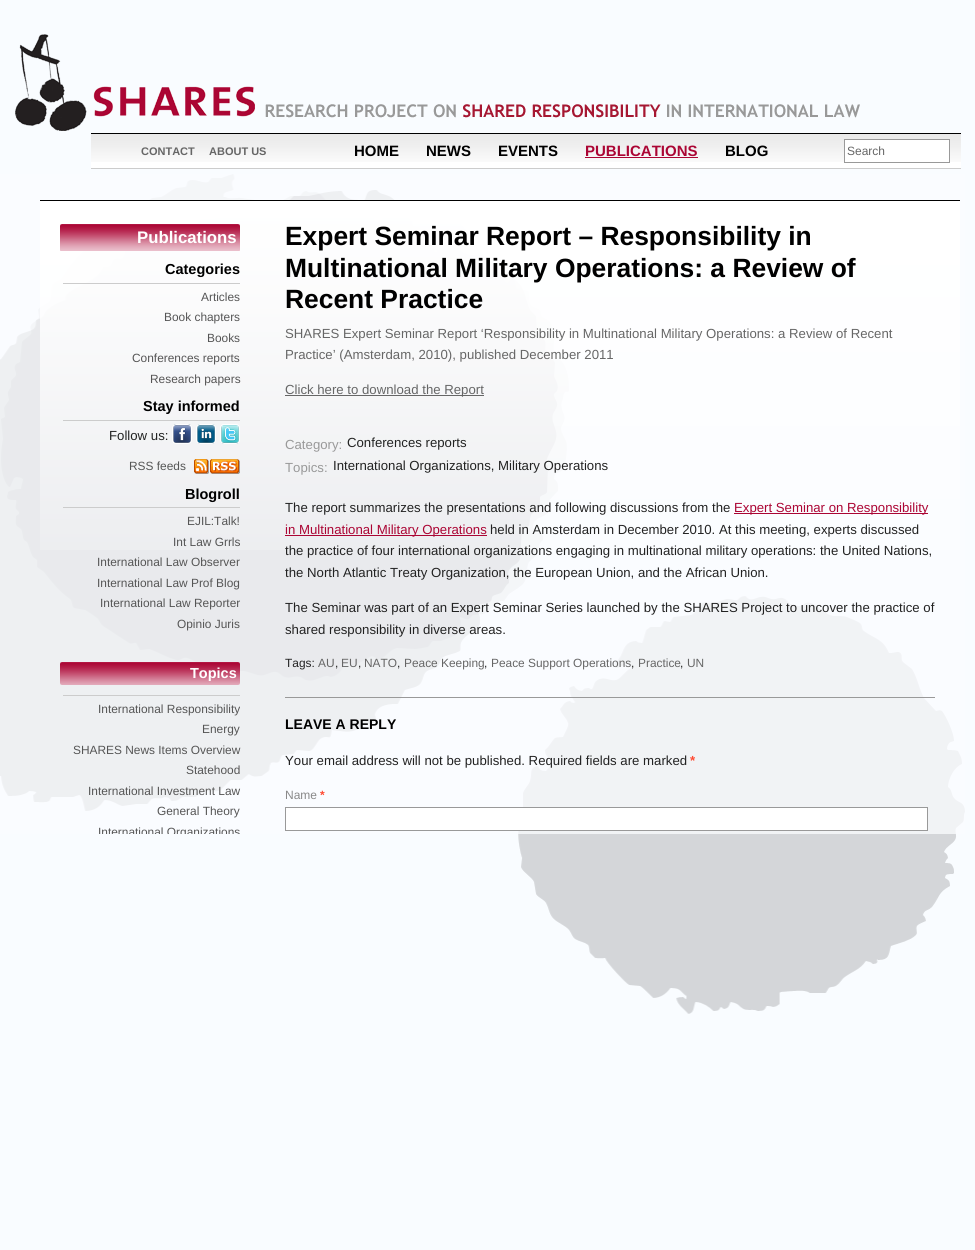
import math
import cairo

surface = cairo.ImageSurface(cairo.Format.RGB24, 975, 1250)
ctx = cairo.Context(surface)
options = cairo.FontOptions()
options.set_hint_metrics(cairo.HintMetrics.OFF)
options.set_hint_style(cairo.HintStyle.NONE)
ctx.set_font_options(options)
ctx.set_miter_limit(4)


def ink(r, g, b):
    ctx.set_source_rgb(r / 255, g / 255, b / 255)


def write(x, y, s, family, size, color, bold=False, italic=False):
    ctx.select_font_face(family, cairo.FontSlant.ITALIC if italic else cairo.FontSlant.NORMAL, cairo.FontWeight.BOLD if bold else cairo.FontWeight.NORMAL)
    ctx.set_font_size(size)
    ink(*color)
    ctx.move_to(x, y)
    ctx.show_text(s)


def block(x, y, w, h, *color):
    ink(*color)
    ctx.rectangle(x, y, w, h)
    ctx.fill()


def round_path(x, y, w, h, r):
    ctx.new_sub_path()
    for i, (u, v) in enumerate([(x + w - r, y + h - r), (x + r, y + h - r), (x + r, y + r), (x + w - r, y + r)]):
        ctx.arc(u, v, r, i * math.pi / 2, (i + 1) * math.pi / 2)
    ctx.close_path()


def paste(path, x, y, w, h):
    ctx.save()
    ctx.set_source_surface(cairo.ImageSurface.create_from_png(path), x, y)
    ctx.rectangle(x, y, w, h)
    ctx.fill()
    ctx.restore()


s1 = dict(family="Liberation Sans", size=11, color=(102, 102, 102), bold=True)
s2 = dict(family="Liberation Sans", size=15, color=(0, 0, 0), bold=True)
s3 = dict(family="Liberation Sans", size=15, color=(171, 5, 52), bold=True)
s4 = dict(family="Liberation Sans", size=12, color=(102, 102, 102))
s5 = dict(family="Liberation Sans", size=16.75, color=(255, 255, 255), bold=True)
s6 = dict(family="Liberation Sans", size=14.5, color=(0, 0, 0), bold=True)
s7 = dict(family="Liberation Sans", size=11.9, color=(85, 85, 85))
s8 = dict(family="Liberation Sans", size=13.2, color=(34, 34, 34))
s9 = dict(family="Liberation Sans", size=14.5, color=(255, 255, 255), bold=True)
s10 = dict(family="Liberation Sans", size=26.4, color=(0, 0, 0), bold=True)
s11 = dict(family="Liberation Sans", size=13.2, color=(102, 102, 102))
s12 = dict(family="Liberation Sans", size=13.2, color=(153, 153, 153))
s13 = dict(family="Liberation Sans", size=13.2, color=(171, 5, 52))
s14 = dict(family="Liberation Sans", size=11.9, color=(34, 34, 34))
s15 = dict(family="Liberation Sans", size=11.9, color=(102, 102, 102))
s16 = dict(family="Liberation Sans", size=14, color=(0, 0, 0), bold=True)
s17 = dict(family="Liberation Sans", size=13.2, color=(255, 75, 51), bold=True)
s18 = dict(family="Liberation Sans", size=12, color=(136, 136, 136))
s19 = dict(family="Liberation Sans", size=12, color=(255, 75, 51), bold=True)

ink(249, 252, 255)
ctx.paint()
paste("pic13.png", 0, 190, 558, 621)
paste("pic14.png", 518, 596, 447, 418)
paste("pic12.png", 1, 174, 568, 507)
ctx.set_source_rgba(0.98, 0.988, 1, 0.75)
ctx.rectangle(0, 174, 965, 660)
ctx.fill()
paste("pic1.png", 15, 34, 240, 97)
paste("pic2.png", 265, 104, 595, 14)
block(91, 162, 870, 6, 255, 255, 255)
paste("pic3.png", 91, 134, 870, 28)
block(91, 133, 870, 1, 0, 0, 0)
block(91, 168, 870, 1, 204, 204, 204)
write(141, 155, "CONTACT", **s1)
write(209, 155, "ABOUT US", **s1)
write(354, 156, "HOME", **s2)
write(426, 156, "NEWS", **s2)
write(498, 156, "EVENTS", **s2)
write(585, 156, "PUBLICATIONS", **s3)
block(585, 157, 113, 1, 171, 5, 52)
write(725, 156, "BLOG", **s2)
ink(255, 255, 255)
ctx.rectangle(844.5, 139.5, 105, 23)
ctx.fill_preserve()
ink(153, 153, 153)
ctx.set_line_width(1)
ctx.stroke()
write(847, 155, "Search", **s4)
block(40, 200, 920, 1, 0, 0, 0)
paste("pic4.png", 40, 201, 220, 349)
paste("pic5.png", 60, 224, 180, 27)
write(137, 243, "Publications", **s5)
write(165, 274, "Categories", **s6)
block(63, 283, 177, 1, 204, 204, 204)
write(201, 301, "Articles", **s7)
write(164, 321, "Book chapters", **s7)
write(207, 342, "Books", **s7)
write(132, 362, "Conferences reports", **s7)
write(150, 383, "Research papers", **s7)
write(143, 411, "Stay informed", **s6)
block(63, 420, 177, 1, 204, 204, 204)
write(109, 440, "Follow us:", **s8)
paste("pic6.png", 173, 424, 18, 19)
round_path(172.5, 424.5, 19, 19, 3.5)
ink(255, 255, 255)
ctx.stroke()
paste("pic7.png", 197, 424, 18, 20)
round_path(196.5, 424.5, 19, 19, 3.5)
ctx.stroke()
paste("pic8.png", 221, 425, 18, 19)
round_path(220.5, 424.5, 19, 19, 3.5)
ctx.stroke()
paste("pic9.png", 194, 459, 46, 15)
write(129, 470, "RSS feeds", **s7)
write(185, 499, "Blogroll", **s6)
block(63, 507, 177, 1, 204, 204, 204)
write(187, 525, "EJIL:Talk!", **s7)
write(173, 546, "Int Law Grrls", **s7)
write(97, 566, "International Law Observer", **s7)
write(97, 587, "International Law Prof Blog", **s7)
write(100, 607, "International Law Reporter", **s7)
write(177, 628, "Opinio Juris", **s7)
paste("pic10.png", 60, 662, 180, 23)
write(190, 678, "Topics", **s9)
block(63, 695, 177, 1, 204, 204, 204)
write(98, 713, "International Responsibility", **s7)
write(202, 733, "Energy", **s7)
write(73, 754, "SHARES News Items Overview", **s7)
write(186, 774, "Statehood", **s7)
write(88, 795, "International Investment Law", **s7)
write(157, 815, "General Theory", **s7)
ctx.save()
ctx.rectangle(40, 201, 920, 633)
ctx.clip()
write(98, 836, "International Organizations", **s7)
ctx.restore()
paste("pic11.png", 260, 201, 700, 349)
write(285, 245, "Expert Seminar Report – Responsibility in", **s10)
write(285, 277, "Multinational Military Operations: a Review of", **s10)
write(285, 308, "Recent Practice", **s10)
write(285, 338, "SHARES Expert Seminar Report ‘Responsibility in Multinational Military Operations: a Review of Recent", **s11)
write(285, 359, "Practice’ (Amsterdam, 2010), published December 2011", **s11)
block(285, 395, 199, 1, 102, 102, 102)
write(285, 394, "Click here to download the Report", **s11)
write(285, 449, "Category:", **s12)
write(347, 447, "Conferences reports", **s8)
write(285, 472, "Topics:", **s12)
write(333, 470, "International Organizations, Military Operations", **s8)
write(285, 512, "The report summarizes the presentations and following discussions from the", **s8)
block(734, 513, 194, 1, 171, 5, 52)
write(734, 512, "Expert Seminar on Responsibility", **s13)
block(285, 535, 202, 1, 171, 5, 52)
write(285, 534, "in Multinational Military Operations", **s13)
write(490, 534, "held in Amsterdam in December 2010. At this meeting, experts discussed", **s8)
write(285, 555, "the practice of four international organizations engaging in multinational military operations: the United Nations,", **s8)
write(285, 577, "the North Atlantic Treaty Organization, the European Union, and the African Union.", **s8)
write(285, 612, "The Seminar was part of an Expert Seminar Series launched by the SHARES Project to uncover the practice of", **s8)
write(285, 634, "shared responsibility in diverse areas.", **s8)
write(285, 667, "Tags:", **s14)
write(318, 667, "AU", **s15)
write(335, 667, ",", **s14)
write(341, 667, "EU", **s15)
write(358, 667, ",", **s14)
write(364, 667, "NATO", **s15)
write(397, 667, ",", **s14)
write(404, 667, "Peace Keeping", **s15)
write(484, 667, ",", **s14)
write(491, 667, "Peace Support Operations", **s15)
write(631, 667, ",", **s14)
write(638, 667, "Practice", **s15)
write(680, 667, ",", **s14)
write(687, 667, "UN", **s15)
block(285, 697, 650, 1, 153, 153, 153)
write(285, 729, "LEAVE A REPLY", **s16)
write(285, 765, "Your email address will not be published. Required fields are marked", **s8)
write(690, 765, "*", **s17)
write(285, 799, "Name", **s18)
write(320, 799, "*", **s19)
ink(255, 255, 255)
ctx.rectangle(285.5, 807.5, 642, 23)
ctx.fill_preserve()
ink(153, 153, 153)
ctx.stroke()
surface.write_to_png("screenshot.png")
